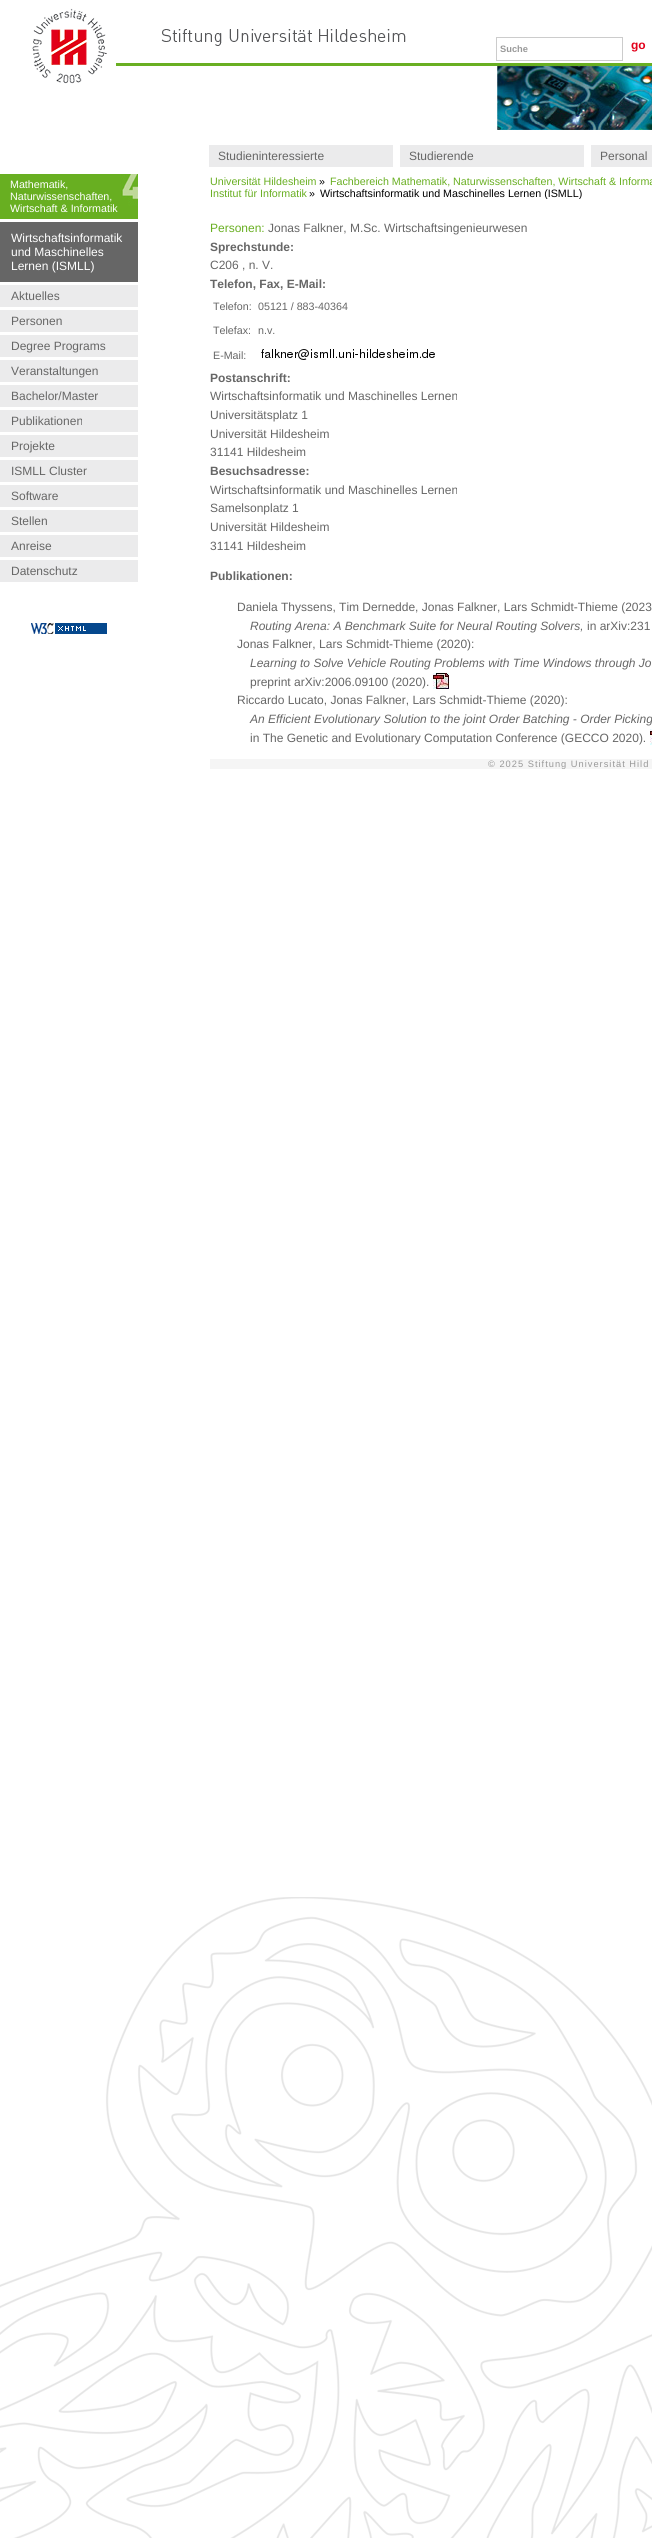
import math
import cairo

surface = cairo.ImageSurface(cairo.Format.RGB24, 652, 2538)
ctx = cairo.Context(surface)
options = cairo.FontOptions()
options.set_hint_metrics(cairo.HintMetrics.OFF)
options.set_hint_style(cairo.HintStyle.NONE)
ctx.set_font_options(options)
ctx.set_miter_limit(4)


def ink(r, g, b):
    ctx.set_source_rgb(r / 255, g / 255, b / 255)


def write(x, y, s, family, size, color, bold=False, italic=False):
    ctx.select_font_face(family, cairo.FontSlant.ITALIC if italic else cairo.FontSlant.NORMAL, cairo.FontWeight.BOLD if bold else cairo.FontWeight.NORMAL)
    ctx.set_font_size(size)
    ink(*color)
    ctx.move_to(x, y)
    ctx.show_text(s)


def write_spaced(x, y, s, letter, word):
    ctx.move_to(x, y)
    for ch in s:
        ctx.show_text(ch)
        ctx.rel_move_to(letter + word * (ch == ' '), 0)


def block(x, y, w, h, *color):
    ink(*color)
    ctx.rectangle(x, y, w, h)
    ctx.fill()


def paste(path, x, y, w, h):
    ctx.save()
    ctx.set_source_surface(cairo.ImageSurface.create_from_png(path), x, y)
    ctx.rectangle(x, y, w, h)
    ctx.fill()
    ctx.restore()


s1 = dict(family="Liberation Sans", size=9.3, color=(153, 153, 153), bold=True)
s2 = dict(family="Liberation Sans", size=12, color=(226, 0, 26), bold=True)
s3 = dict(family="Liberation Sans", size=10.7, color=(255, 255, 255))
s4 = dict(family="Liberation Sans", size=12, color=(255, 255, 255))
s5 = dict(family="Liberation Sans", size=12, color=(102, 102, 102))
s6 = dict(family="Liberation Sans", size=10.7, color=(105, 175, 34))
s7 = dict(family="Liberation Sans", size=10.7, color=(0, 0, 0))
s8 = dict(family="Liberation Sans", size=12, color=(105, 175, 34))
s9 = dict(family="Liberation Sans", size=12, color=(102, 102, 102), bold=True)
s10 = dict(family="Liberation Sans", size=10.7, color=(102, 102, 102))
s11 = dict(family="Liberation Sans", size=12, color=(102, 102, 102), italic=True)

ink(255, 255, 255)
ctx.paint()
paste("pic1.png", 0, 1897, 652, 641)
paste("pic2.png", 161, 29, 245, 17)
ctx.rectangle(496.5, 37.5, 126, 23)
ink(204, 204, 204)
ctx.set_line_width(1)
ctx.stroke()
write(500, 52, "Suche", **s1)
write(631, 49, "go", **s2)
paste("pic3.png", 497, 66, 155, 64)
paste("pic4.png", 32, 8, 75, 76)
paste("pic5.png", 0, 174, 138, 45)
write(10, 188, "Mathematik,", **s3)
write(10, 200, "Naturwissenschaften,", **s3)
write(10, 212, "Wirtschaft & Informatik", **s3)
block(0, 222, 138, 60, 102, 102, 102)
write(11, 242, "Wirtschaftsinformatik", **s4)
write(11, 256, "und Maschinelles", **s4)
write(11, 270, "Lernen (ISMLL)", **s4)
block(0, 285, 138, 22, 235, 235, 236)
write(11, 300, "Aktuelles", **s5)
block(0, 310, 138, 22, 235, 235, 236)
write(11, 325, "Personen", **s5)
block(0, 335, 138, 22, 235, 235, 236)
write(11, 350, "Degree Programs", **s5)
block(0, 360, 138, 22, 235, 235, 236)
write(11, 375, "Veranstaltungen", **s5)
block(0, 385, 138, 22, 235, 235, 236)
write(11, 400, "Bachelor/Master", **s5)
block(0, 410, 138, 22, 235, 235, 236)
write(11, 425, "Publikationen", **s5)
block(0, 435, 138, 22, 235, 235, 236)
write(11, 450, "Projekte", **s5)
block(0, 460, 138, 22, 235, 235, 236)
write(11, 475, "ISMLL Cluster", **s5)
block(0, 485, 138, 22, 235, 235, 236)
write(11, 500, "Software", **s5)
block(0, 510, 138, 22, 235, 235, 236)
write(11, 525, "Stellen", **s5)
block(0, 535, 138, 22, 235, 235, 236)
write(11, 550, "Anreise", **s5)
block(0, 560, 138, 22, 235, 235, 236)
write(11, 575, "Datenschutz", **s5)
paste("pic6.png", 31, 623, 76, 11)
write(210, 185, "Universität Hildesheim", **s6)
write(319, 185, "»", **s7)
write(330, 185, "Fachbereich Mathematik, Naturwissenschaften, Wirtschaft & Informa", **s6)
write(210, 197, "Institut für Informatik", **s6)
write(309, 197, "»", **s7)
ctx.save()
ctx.rectangle(320, 187, 262, 12)
ctx.clip()
write(320, 197, "Wirtschaftsinformatik und Maschinelles Lernen (ISMLL)", **s7)
ctx.restore()
write(210, 232, "Personen:", **s8)
write(268, 232, "Jonas Falkner, M.Sc. Wirtschaftsingenieurwesen", **s5)
write(210, 251, "Sprechstunde:", **s9)
write(210, 269, "C206 , n. V.", **s5)
write(210, 288, "Telefon, Fax, E-Mail:", **s9)
write(213, 310, "Telefon:", **s10)
write(258, 310, "05121 / 883-40364", **s10)
write(213, 334, "Telefax:", **s10)
write(258, 334, "n.v.", **s10)
write(213, 359, "E-Mail:", **s10)
paste("pic7.png", 261, 349, 174, 11)
write(210, 382, "Postanschrift:", **s9)
write(210, 400, "Wirtschaftsinformatik und Maschinelles Lernen", **s5)
write(210, 419, "Universitätsplatz 1", **s5)
write(210, 438, "Universität Hildesheim", **s5)
write(210, 456, "31141 Hildesheim", **s5)
write(210, 475, "Besuchsadresse:", **s9)
write(210, 494, "Wirtschaftsinformatik und Maschinelles Lernen", **s5)
write(210, 512, "Samelsonplatz 1", **s5)
write(210, 531, "Universität Hildesheim", **s5)
write(210, 550, "31141 Hildesheim", **s5)
write(210, 580, "Publikationen:", **s9)
write(237, 611, "Daniela Thyssens, Tim Dernedde, Jonas Falkner, Lars Schmidt-Thieme (2023", **s5)
write(250, 630, "Routing Arena: A Benchmark Suite for Neural Routing Solvers,", **s11)
write(587, 630, "in arXiv:231", **s5)
write(237, 648, "Jonas Falkner, Lars Schmidt-Thieme (2020):", **s5)
write(250, 667, "Learning to Solve Vehicle Routing Problems with Time Windows through Jo", **s11)
write(250, 686, "preprint arXiv:2006.09100 (2020).", **s5)
paste("pic8.png", 433, 673, 16, 16)
write(237, 704, "Riccardo Lucato, Jonas Falkner, Lars Schmidt-Thieme (2020):", **s5)
write(250, 723, "An Efficient Evolutionary Solution to the joint Order Batching - Order Picking", **s11)
write(250, 742, "in The Genetic and Evolutionary Computation Conference (GECCO 2020).", **s5)
paste("pic9.png", 650, 729, 2, 16)
block(210, 759, 442, 10, 245, 245, 245)
ctx.set_font_size(9.3)
ink(153, 153, 153)
write_spaced(488, 767, "© 2025 Stiftung Universität Hild", 1, 0)
block(116, 63, 536, 3, 105, 175, 34)
block(209, 145, 184, 22, 235, 235, 236)
write(218, 160, "Studieninteressierte", **s5)
block(400, 145, 184, 22, 235, 235, 236)
write(409, 160, "Studierende", **s5)
block(591, 145, 61, 22, 235, 235, 236)
write(600, 160, "Personal", **s5)
surface.write_to_png("screenshot.png")
